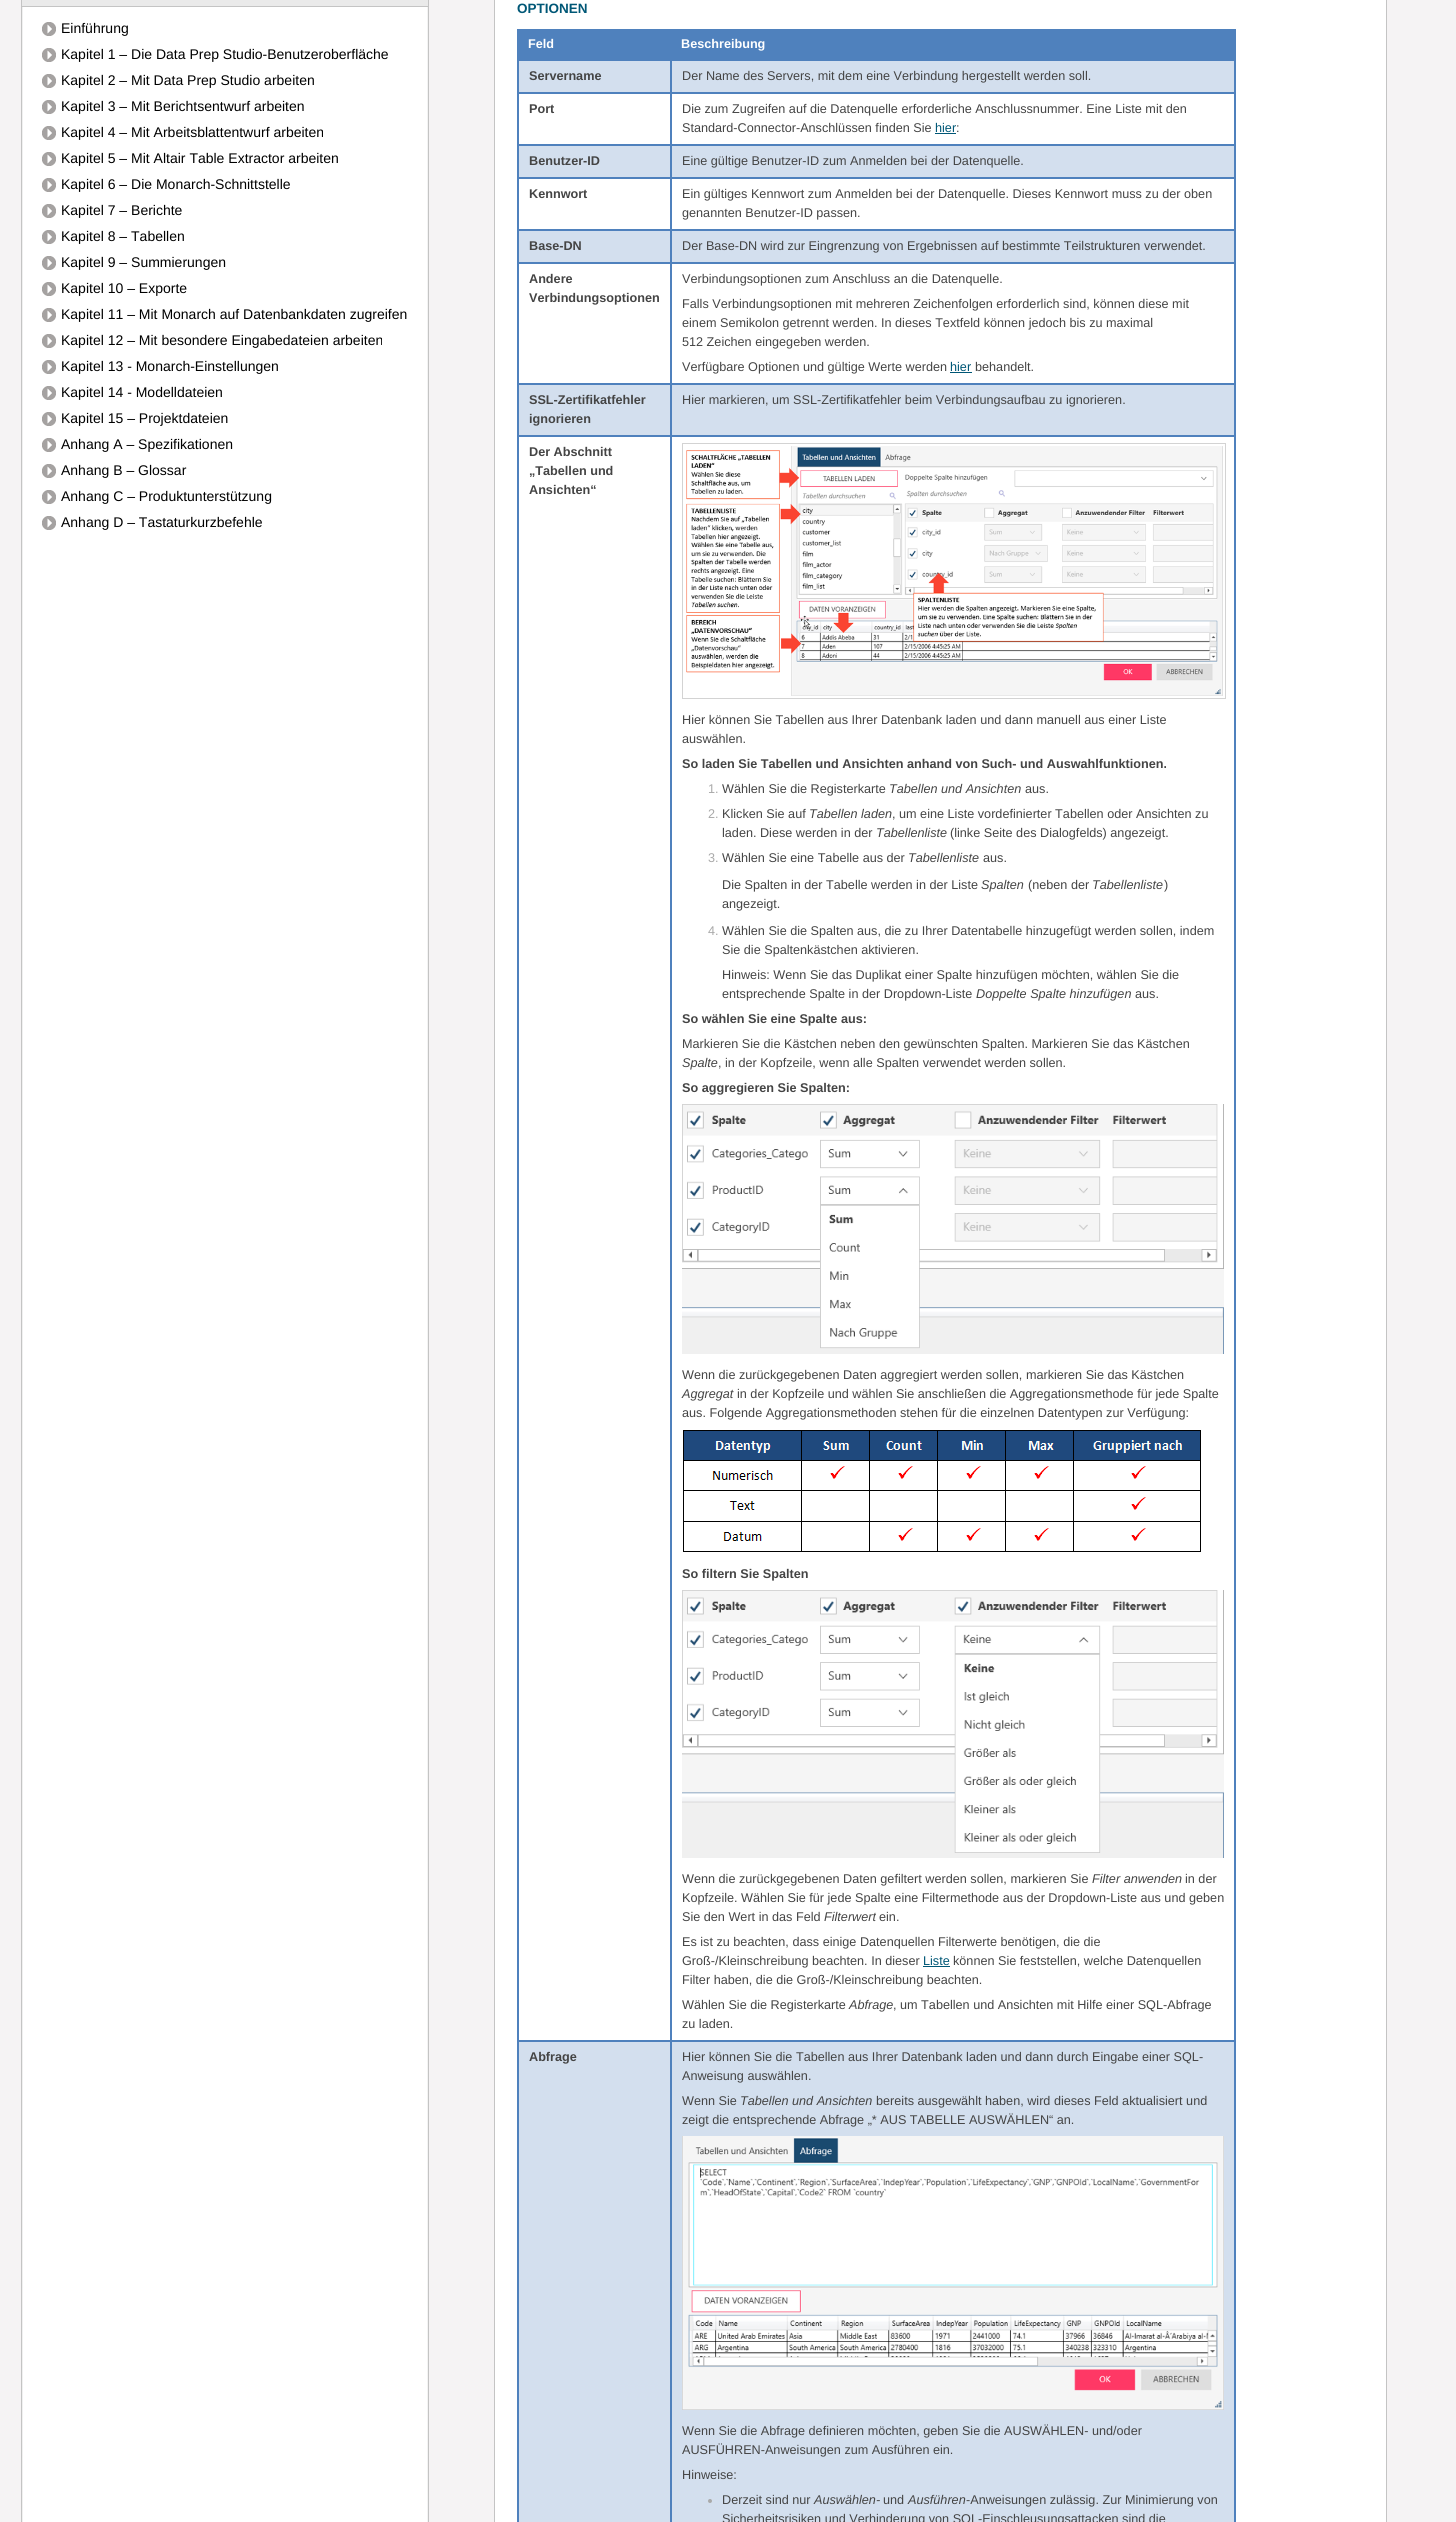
import math
import cairo

surface = cairo.ImageSurface(cairo.Format.RGB24, 1456, 2522)
ctx = cairo.Context(surface)
options = cairo.FontOptions()
options.set_hint_metrics(cairo.HintMetrics.OFF)
options.set_hint_style(cairo.HintStyle.NONE)
ctx.set_font_options(options)
ctx.set_miter_limit(4)


def ink(r, g, b):
    ctx.set_source_rgb(r / 255, g / 255, b / 255)


def write(x, y, s, family, size, color, bold=False, italic=False):
    ctx.select_font_face(family, cairo.FontSlant.ITALIC if italic else cairo.FontSlant.NORMAL, cairo.FontWeight.BOLD if bold else cairo.FontWeight.NORMAL)
    ctx.set_font_size(size)
    ink(*color)
    ctx.move_to(x, y)
    ctx.show_text(s)


def block(x, y, w, h, *color):
    ink(*color)
    ctx.rectangle(x, y, w, h)
    ctx.fill()


def paste(path, x, y, w, h):
    ctx.save()
    ctx.set_source_surface(cairo.ImageSurface.create_from_png(path), x, y)
    ctx.rectangle(x, y, w, h)
    ctx.fill()
    ctx.restore()


s1 = dict(family="Liberation Sans", size=14, color=(0, 0, 0))
s2 = dict(family="Liberation Sans", size=13.5, color=(0, 87, 118), bold=True)
s3 = dict(family="Liberation Sans", size=12.65, color=(255, 255, 255), bold=True)
s4 = dict(family="Liberation Sans", size=12.65, color=(68, 68, 68), bold=True)
s5 = dict(family="Liberation Sans", size=12.65, color=(68, 68, 68))
s6 = dict(family="Liberation Sans", size=12.65, color=(0, 87, 118))
s7 = dict(family="Liberation Sans", size=12.65, color=(169, 169, 169))
s8 = dict(family="Liberation Sans", size=12.65, color=(68, 68, 68), italic=True)

ink(245, 243, 244)
ctx.paint()
paste("pic1.png", 21, 0, 408, 2522)
block(22, 0, 406, 6, 234, 234, 234)
block(22, 6, 406, 1, 196, 196, 196)
paste("pic2.png", 42, 22, 14, 14)
write(61, 33, "Einführung", **s1)
paste("pic2.png", 42, 48, 14, 14)
write(61, 59, "Kapitel 1 – Die Data Prep Studio-Benutzeroberfläche", **s1)
paste("pic2.png", 42, 74, 14, 14)
write(61, 85, "Kapitel 2 – Mit Data Prep Studio arbeiten", **s1)
paste("pic2.png", 42, 100, 14, 14)
write(61, 111, "Kapitel 3 – Mit Berichtsentwurf arbeiten", **s1)
paste("pic2.png", 42, 126, 14, 14)
write(61, 137, "Kapitel 4 – Mit Arbeitsblattentwurf arbeiten", **s1)
paste("pic2.png", 42, 152, 14, 14)
write(61, 163, "Kapitel 5 – Mit Altair Table Extractor arbeiten", **s1)
paste("pic2.png", 42, 178, 14, 14)
write(61, 189, "Kapitel 6 – Die Monarch-Schnittstelle", **s1)
paste("pic2.png", 42, 204, 14, 14)
write(61, 215, "Kapitel 7 – Berichte", **s1)
paste("pic2.png", 42, 230, 14, 14)
write(61, 241, "Kapitel 8 – Tabellen", **s1)
paste("pic2.png", 42, 256, 14, 14)
write(61, 267, "Kapitel 9 – Summierungen", **s1)
paste("pic2.png", 42, 282, 14, 14)
write(61, 293, "Kapitel 10 – Exporte", **s1)
paste("pic2.png", 42, 308, 14, 14)
write(61, 319, "Kapitel 11 – Mit Monarch auf Datenbankdaten zugreifen", **s1)
paste("pic2.png", 42, 334, 14, 14)
write(61, 345, "Kapitel 12 – Mit besondere Eingabedateien arbeiten", **s1)
paste("pic2.png", 42, 360, 14, 14)
write(61, 371, "Kapitel 13 - Monarch-Einstellungen", **s1)
paste("pic2.png", 42, 386, 14, 14)
write(61, 397, "Kapitel 14 - Modelldateien", **s1)
paste("pic2.png", 42, 412, 14, 14)
write(61, 423, "Kapitel 15 – Projektdateien", **s1)
paste("pic2.png", 42, 438, 14, 14)
write(61, 449, "Anhang A – Spezifikationen", **s1)
paste("pic2.png", 42, 464, 14, 14)
write(61, 475, "Anhang B – Glossar", **s1)
paste("pic2.png", 42, 490, 14, 14)
write(61, 501, "Anhang C – Produktunterstützung", **s1)
paste("pic2.png", 42, 516, 14, 14)
write(61, 527, "Anhang D – Tastaturkurzbefehle", **s1)
ink(255, 255, 255)
ctx.rectangle(494.5, -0.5, 892, 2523)
ctx.fill_preserve()
ink(196, 196, 196)
ctx.set_line_width(1)
ctx.stroke()
write(517, 13, "OPTIONEN", **s2)
block(1235, 29, 1, 2493, 79, 129, 189)
block(517, 29, 1, 2493, 79, 129, 189)
block(518, 29, 717, 31, 79, 129, 189)
write(528, 48, "Feld", **s3)
write(681, 48, "Beschreibung", **s3)
ink(211, 223, 238)
ctx.rectangle(518.5, 60.5, 152, 32)
ctx.fill_preserve()
ink(79, 129, 189)
ctx.stroke()
write(529, 80, "Servername", **s4)
ink(211, 223, 238)
ctx.rectangle(671.5, 60.5, 563, 32)
ctx.fill_preserve()
ink(79, 129, 189)
ctx.stroke()
write(682, 80, "Der Name des Servers, mit dem eine Verbindung hergestellt werden soll.", **s5)
ctx.rectangle(518.5, 93.5, 152, 51)
ink(79, 129, 189)
ctx.stroke()
write(529, 113, "Port", **s4)
ctx.rectangle(671.5, 93.5, 563, 51)
ink(79, 129, 189)
ctx.stroke()
write(682, 113, "Die zum Zugreifen auf die Datenquelle erforderliche Anschlussnummer. Eine Liste mit den", **s5)
write(682, 132, "Standard-Connector-Anschlüssen finden Sie", **s5)
write(935, 132, "hier", **s6)
block(935, 133, 21, 1, 0, 87, 118)
write(956, 132, ":", **s5)
ink(211, 223, 238)
ctx.rectangle(518.5, 145.5, 152, 32)
ctx.fill_preserve()
ink(79, 129, 189)
ctx.stroke()
write(529, 165, "Benutzer-ID", **s4)
ink(211, 223, 238)
ctx.rectangle(671.5, 145.5, 563, 32)
ctx.fill_preserve()
ink(79, 129, 189)
ctx.stroke()
write(682, 165, "Eine gültige Benutzer-ID zum Anmelden bei der Datenquelle.", **s5)
ctx.rectangle(518.5, 178.5, 152, 51)
ink(79, 129, 189)
ctx.stroke()
write(529, 198, "Kennwort", **s4)
ctx.rectangle(671.5, 178.5, 563, 51)
ink(79, 129, 189)
ctx.stroke()
write(682, 198, "Ein gültiges Kennwort zum Anmelden bei der Datenquelle. Dieses Kennwort muss zu der oben", **s5)
write(682, 217, "genannten Benutzer-ID passen.", **s5)
ink(211, 223, 238)
ctx.rectangle(518.5, 230.5, 152, 32)
ctx.fill_preserve()
ink(79, 129, 189)
ctx.stroke()
write(529, 250, "Base-DN", **s4)
ink(211, 223, 238)
ctx.rectangle(671.5, 230.5, 563, 32)
ctx.fill_preserve()
ink(79, 129, 189)
ctx.stroke()
write(682, 250, "Der Base-DN wird zur Eingrenzung von Ergebnissen auf bestimmte Teilstrukturen verwendet.", **s5)
ctx.rectangle(518.5, 263.5, 152, 120)
ink(79, 129, 189)
ctx.stroke()
write(529, 283, "Andere", **s4)
write(529, 302, "Verbindungsoptionen", **s4)
ctx.rectangle(671.5, 263.5, 563, 120)
ink(79, 129, 189)
ctx.stroke()
write(682, 283, "Verbindungsoptionen zum Anschluss an die Datenquelle.", **s5)
write(682, 308, "Falls Verbindungsoptionen mit mehreren Zeichenfolgen erforderlich sind, können diese mit", **s5)
write(682, 327, "einem Semikolon getrennt werden. In dieses Textfeld können jedoch bis zu maximal", **s5)
write(682, 346, "512 Zeichen eingegeben werden.", **s5)
write(682, 371, "Verfügbare Optionen und gültige Werte werden", **s5)
write(950, 371, "hier", **s6)
block(950, 372, 22, 1, 0, 87, 118)
write(975, 371, "behandelt.", **s5)
ink(211, 223, 238)
ctx.rectangle(518.5, 384.5, 152, 51)
ctx.fill_preserve()
ink(79, 129, 189)
ctx.stroke()
write(529, 404, "SSL-Zertifikatfehler", **s4)
write(529, 423, "ignorieren", **s4)
ink(211, 223, 238)
ctx.rectangle(671.5, 384.5, 563, 51)
ctx.fill_preserve()
ink(79, 129, 189)
ctx.stroke()
write(682, 404, "Hier markieren, um SSL-Zertifikatfehler beim Verbindungsaufbau zu ignorieren.", **s5)
ctx.rectangle(518.5, 436.5, 152, 1604)
ink(79, 129, 189)
ctx.stroke()
write(529, 456, "Der Abschnitt", **s4)
write(529, 475, "„Tabellen und", **s4)
write(529, 494, "Ansichten“", **s4)
ctx.rectangle(671.5, 436.5, 563, 1604)
ink(79, 129, 189)
ctx.stroke()
ctx.rectangle(682.5, 443.5, 543, 255)
ink(211, 211, 211)
ctx.stroke()
paste("pic3.png", 686, 446, 537, 250)
write(682, 724, "Hier können Sie Tabellen aus Ihrer Datenbank laden und dann manuell aus einer Liste", **s5)
write(682, 743, "auswählen.", **s5)
write(682, 768, "So laden Sie Tabellen und Ansichten anhand von Such- und Auswahlfunktionen.", **s4)
write(708, 793, "1.", **s7)
write(722, 793, "Wählen Sie die Registerkarte", **s5)
write(889, 793, "Tabellen und Ansichten", **s8)
write(1025, 793, "aus.", **s5)
write(708, 818, "2.", **s7)
write(722, 818, "Klicken Sie auf", **s5)
write(809, 818, "Tabellen laden", **s8)
write(892, 818, ", um eine Liste vordefinierter Tabellen oder Ansichten zu", **s5)
write(722, 837, "laden. Diese werden in der", **s5)
write(876, 837, "Tabellenliste", **s8)
write(950, 837, "(linke Seite des Dialogfelds) angezeigt.", **s5)
write(708, 862, "3.", **s7)
write(722, 862, "Wählen Sie eine Tabelle aus der", **s5)
write(908, 862, "Tabellenliste", **s8)
write(983, 862, "aus.", **s5)
write(722, 889, "Die Spalten in der Tabelle werden in der Liste", **s5)
write(981, 889, "Spalten", **s8)
write(1028, 889, "(neben der", **s5)
write(1092, 889, "Tabellenliste", **s8)
write(1164, 889, ")", **s5)
write(722, 908, "angezeigt.", **s5)
write(708, 935, "4.", **s7)
write(722, 935, "Wählen Sie die Spalten aus, die zu Ihrer Datentabelle hinzugefügt werden sollen, indem", **s5)
write(722, 954, "Sie die Spaltenkästchen aktivieren.", **s5)
write(722, 979, "Hinweis: Wenn Sie das Duplikat einer Spalte hinzufügen möchten, wählen Sie die", **s5)
write(722, 998, "entsprechende Spalte in der Dropdown-Liste", **s5)
write(976, 998, "Doppelte Spalte hinzufügen", **s8)
write(1135, 998, "aus.", **s5)
write(682, 1023, "So wählen Sie eine Spalte aus:", **s4)
write(682, 1048, "Markieren Sie die Kästchen neben den gewünschten Spalten. Markieren Sie das Kästchen", **s5)
write(682, 1067, "Spalte", **s8)
write(718, 1067, ", in der Kopfzeile, wenn alle Spalten verwendet werden sollen.", **s5)
write(682, 1092, "So aggregieren Sie Spalten:", **s4)
paste("pic4.png", 682, 1104, 542, 250)
write(682, 1379, "Wenn die zurückgegebenen Daten aggregiert werden sollen, markieren Sie das Kästchen", **s5)
write(682, 1398, "Aggregat", **s8)
write(737, 1398, "in der Kopfzeile und wählen Sie anschließen die Aggregationsmethode für jede Spalte", **s5)
write(682, 1417, "aus. Folgende Aggregationsmethoden stehen für die einzelnen Datentypen zur Verfügung:", **s5)
paste("pic5.png", 683, 1430, 518, 122)
write(682, 1578, "So filtern Sie Spalten", **s4)
paste("pic6.png", 682, 1590, 542, 268)
write(682, 1883, "Wenn die zurückgegebenen Daten gefiltert werden sollen, markieren Sie", **s5)
write(1092, 1883, "Filter anwenden", **s8)
write(1185, 1883, "in der", **s5)
write(682, 1902, "Kopfzeile. Wählen Sie für jede Spalte eine Filtermethode aus der Dropdown-Liste aus und geben", **s5)
write(682, 1921, "Sie den Wert in das Feld", **s5)
write(824, 1921, "Filterwert", **s8)
write(879, 1921, "ein.", **s5)
write(682, 1946, "Es ist zu beachten, dass einige Datenquellen Filterwerte benötigen, die die", **s5)
write(682, 1965, "Groß-/Kleinschreibung beachten. In dieser", **s5)
write(923, 1965, "Liste", **s6)
block(923, 1966, 27, 1, 0, 87, 118)
write(953, 1965, "können Sie feststellen, welche Datenquellen", **s5)
write(682, 1984, "Filter haben, die die Groß-/Kleinschreibung beachten.", **s5)
write(682, 2009, "Wählen Sie die Registerkarte", **s5)
write(849, 2009, "Abfrage", **s8)
write(893, 2009, ", um Tabellen und Ansichten mit Hilfe einer SQL-Abfrage", **s5)
write(682, 2028, "zu laden.", **s5)
ink(211, 223, 238)
ctx.rectangle(518.5, 2041.5, 152, 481)
ctx.fill_preserve()
ink(79, 129, 189)
ctx.stroke()
write(529, 2061, "Abfrage", **s4)
ink(211, 223, 238)
ctx.rectangle(671.5, 2041.5, 563, 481)
ctx.fill_preserve()
ink(79, 129, 189)
ctx.stroke()
write(682, 2061, "Hier können Sie die Tabellen aus Ihrer Datenbank laden und dann durch Eingabe einer SQL-", **s5)
write(682, 2080, "Anweisung auswählen.", **s5)
write(682, 2105, "Wenn Sie", **s5)
write(740, 2105, "Tabellen und Ansichten", **s8)
write(876, 2105, "bereits ausgewählt haben, wird dieses Feld aktualisiert und", **s5)
write(682, 2124, "zeigt die entsprechende Abfrage „* AUS TABELLE AUSWÄHLEN“ an.", **s5)
paste("pic7.png", 682, 2136, 542, 274)
write(682, 2435, "Wenn Sie die Abfrage definieren möchten, geben Sie die AUSWÄHLEN- und/oder", **s5)
write(682, 2454, "AUSFÜHREN-Anweisungen zum Ausführen ein.", **s5)
write(682, 2479, "Hinweise:", **s5)
ink(169, 169, 169)
ctx.new_path()
ctx.arc(710, 2501, 2, 0, 2 * math.pi)
ctx.fill()
write(722, 2504, "Derzeit sind nur", **s5)
write(814, 2504, "Auswählen-", **s8)
write(883, 2504, "und", **s5)
write(908, 2504, "Ausführen", **s8)
write(966, 2504, "-Anweisungen zulässig. Zur Minimierung von", **s5)
write(722, 2523, "Sicherheitsrisiken und Verhinderung von SQL-Einschleusungsattacken sind die", **s5)
surface.write_to_png("screenshot.png")
